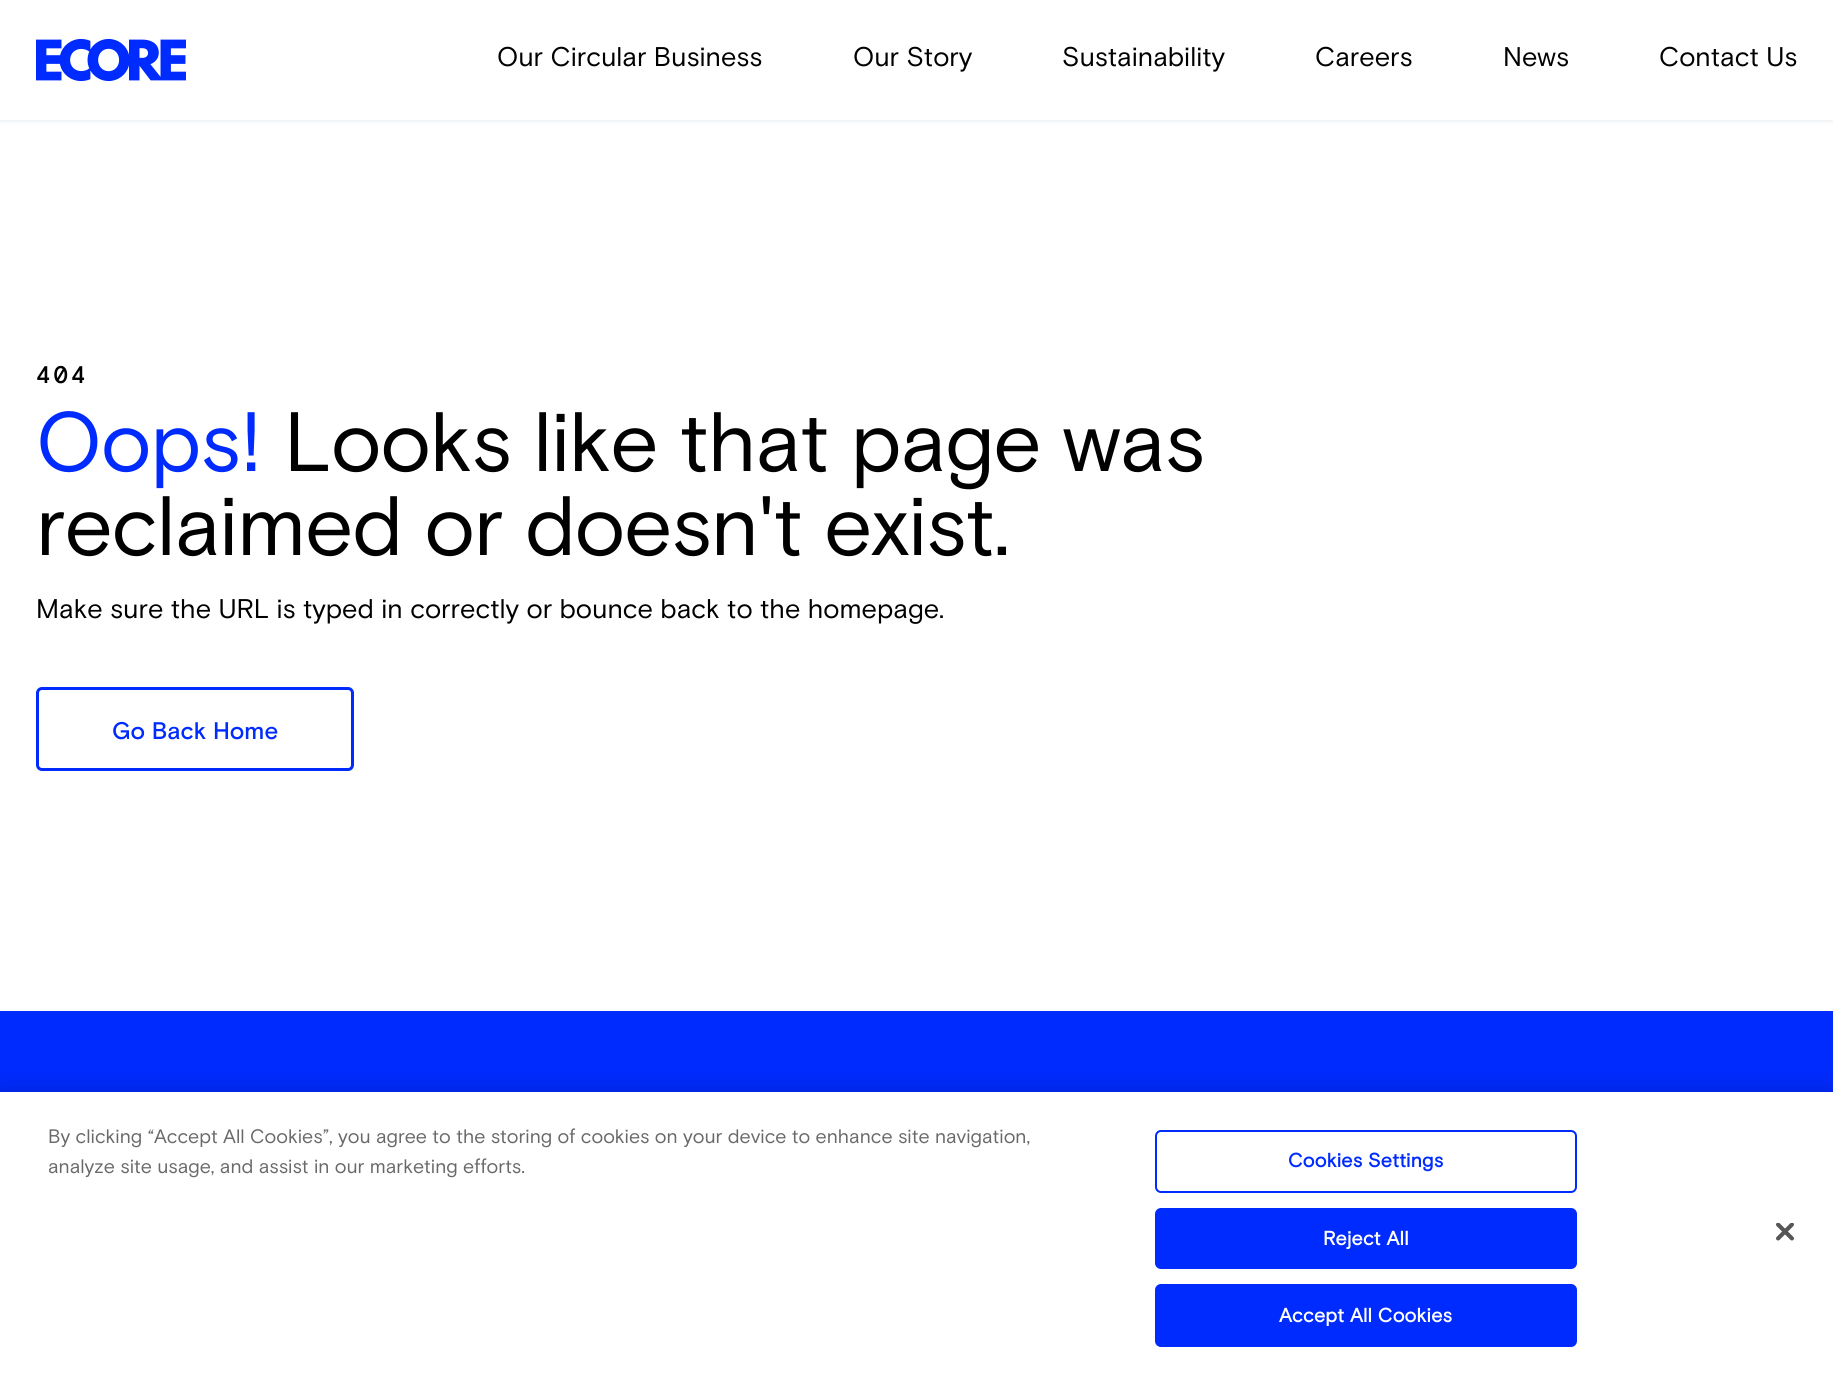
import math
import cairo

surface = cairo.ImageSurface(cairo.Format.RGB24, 1833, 1376)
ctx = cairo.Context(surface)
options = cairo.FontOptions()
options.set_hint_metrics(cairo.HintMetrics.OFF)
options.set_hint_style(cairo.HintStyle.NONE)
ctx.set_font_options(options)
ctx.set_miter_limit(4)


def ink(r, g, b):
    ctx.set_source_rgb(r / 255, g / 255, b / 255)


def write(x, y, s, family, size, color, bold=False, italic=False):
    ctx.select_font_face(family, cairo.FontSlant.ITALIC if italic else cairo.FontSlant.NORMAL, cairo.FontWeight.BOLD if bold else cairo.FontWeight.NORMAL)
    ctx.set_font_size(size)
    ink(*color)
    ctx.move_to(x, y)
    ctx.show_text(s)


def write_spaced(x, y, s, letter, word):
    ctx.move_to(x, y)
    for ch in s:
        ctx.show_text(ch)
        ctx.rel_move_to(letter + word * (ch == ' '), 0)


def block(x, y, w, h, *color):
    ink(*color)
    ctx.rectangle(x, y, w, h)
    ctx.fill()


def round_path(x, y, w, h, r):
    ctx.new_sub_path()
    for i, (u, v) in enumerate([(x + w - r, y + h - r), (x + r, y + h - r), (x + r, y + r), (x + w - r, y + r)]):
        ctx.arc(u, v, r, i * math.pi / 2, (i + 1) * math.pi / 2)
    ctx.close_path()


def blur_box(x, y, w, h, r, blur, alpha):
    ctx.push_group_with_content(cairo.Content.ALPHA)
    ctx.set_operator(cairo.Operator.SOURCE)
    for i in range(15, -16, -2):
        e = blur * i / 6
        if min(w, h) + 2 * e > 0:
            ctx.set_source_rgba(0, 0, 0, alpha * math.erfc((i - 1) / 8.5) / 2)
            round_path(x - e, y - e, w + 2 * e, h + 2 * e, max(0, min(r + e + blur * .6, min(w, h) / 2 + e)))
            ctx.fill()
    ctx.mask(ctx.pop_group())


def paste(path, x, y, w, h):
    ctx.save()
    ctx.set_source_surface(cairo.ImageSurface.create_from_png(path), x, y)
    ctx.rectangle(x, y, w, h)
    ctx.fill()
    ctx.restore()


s1 = dict(family="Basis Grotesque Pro", size=27, color=(0, 0, 0))
s2 = dict(family="Basis Grotesque Pro Medium", size=24, color=(0, 43, 255))
s3 = dict(family="Basis Grotesque Pro", size=19.5, color=(105, 105, 105))

ink(255, 255, 255)
ctx.paint()
ctx.save()
ctx.rectangle(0, 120, 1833, 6)
ctx.clip()
ink(223, 229, 235)
blur_box(0, 0, 1833, 120, 0, 3, 1)
ctx.restore()
paste("pic1.png", 36, 38, 150, 44)
write(497, 66, "Our Circular Business", **s1)
write(853, 66, "Our Story", **s1)
write(1062, 66, "Sustainability", **s1)
write(1315, 66, "Careers", **s1)
write(1503, 66, "News", **s1)
write(1659, 66, "Contact Us", **s1)
ctx.select_font_face("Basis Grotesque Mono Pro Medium")
ctx.set_font_size(24)
write_spaced(36, 383, "404", 3, 0)
ctx.select_font_face("Basis Grotesque Pro")
ctx.set_font_size(84)
ink(0, 43, 255)
write_spaced(36, 471, "Oops!", -0.85, 0)
ink(0, 0, 0)
write_spaced(284, 471, "Looks like that page was", -0.85, 0)
write_spaced(36, 555, "reclaimed or doesn't exist.", -0.85, 0)
write(36, 618, "Make sure the URL is typed in correctly or bounce back to the homepage.", **s1)
round_path(37.5, 688.5, 315, 81, 4.5)
ink(0, 43, 255)
ctx.set_line_width(3)
ctx.stroke()
write(112, 739, "Go Back Home", **s2)
block(0, 1011, 1833, 81, 0, 43, 255)
ink(0, 0, 0)
blur_box(0, 1092, 1833, 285, 0, 13.5, 0.2)
block(0, 1092, 1833, 284, 255, 255, 255)
write(48, 1143, "By clicking “Accept All Cookies”, you agree to the storing of cookies on your device to enhance site navigation,", **s3)
write(48, 1173, "analyze site usage, and assist in our marketing efforts.", **s3)
round_path(1156, 1131, 420, 61, 5)
ink(0, 43, 255)
ctx.set_line_width(2)
ctx.stroke()
ctx.select_font_face("Basis Grotesque Pro", cairo.FontSlant.NORMAL, cairo.FontWeight.BOLD)
write_spaced(1288, 1167, "Cookies Settings", 0.25, 0)
round_path(1156, 1209, 420, 59, 5)
ctx.fill_preserve()
ctx.stroke()
ink(255, 255, 255)
write_spaced(1323, 1245, "Reject All", 0.25, 0)
ink(0, 43, 255)
round_path(1156, 1285, 420, 61, 5)
ctx.fill_preserve()
ctx.stroke()
ink(255, 255, 255)
write_spaced(1279, 1322, "Accept All Cookies", 0.25, 0)
paste("pic2.png", 1776, 1223, 18, 18)
surface.write_to_png("screenshot.png")
